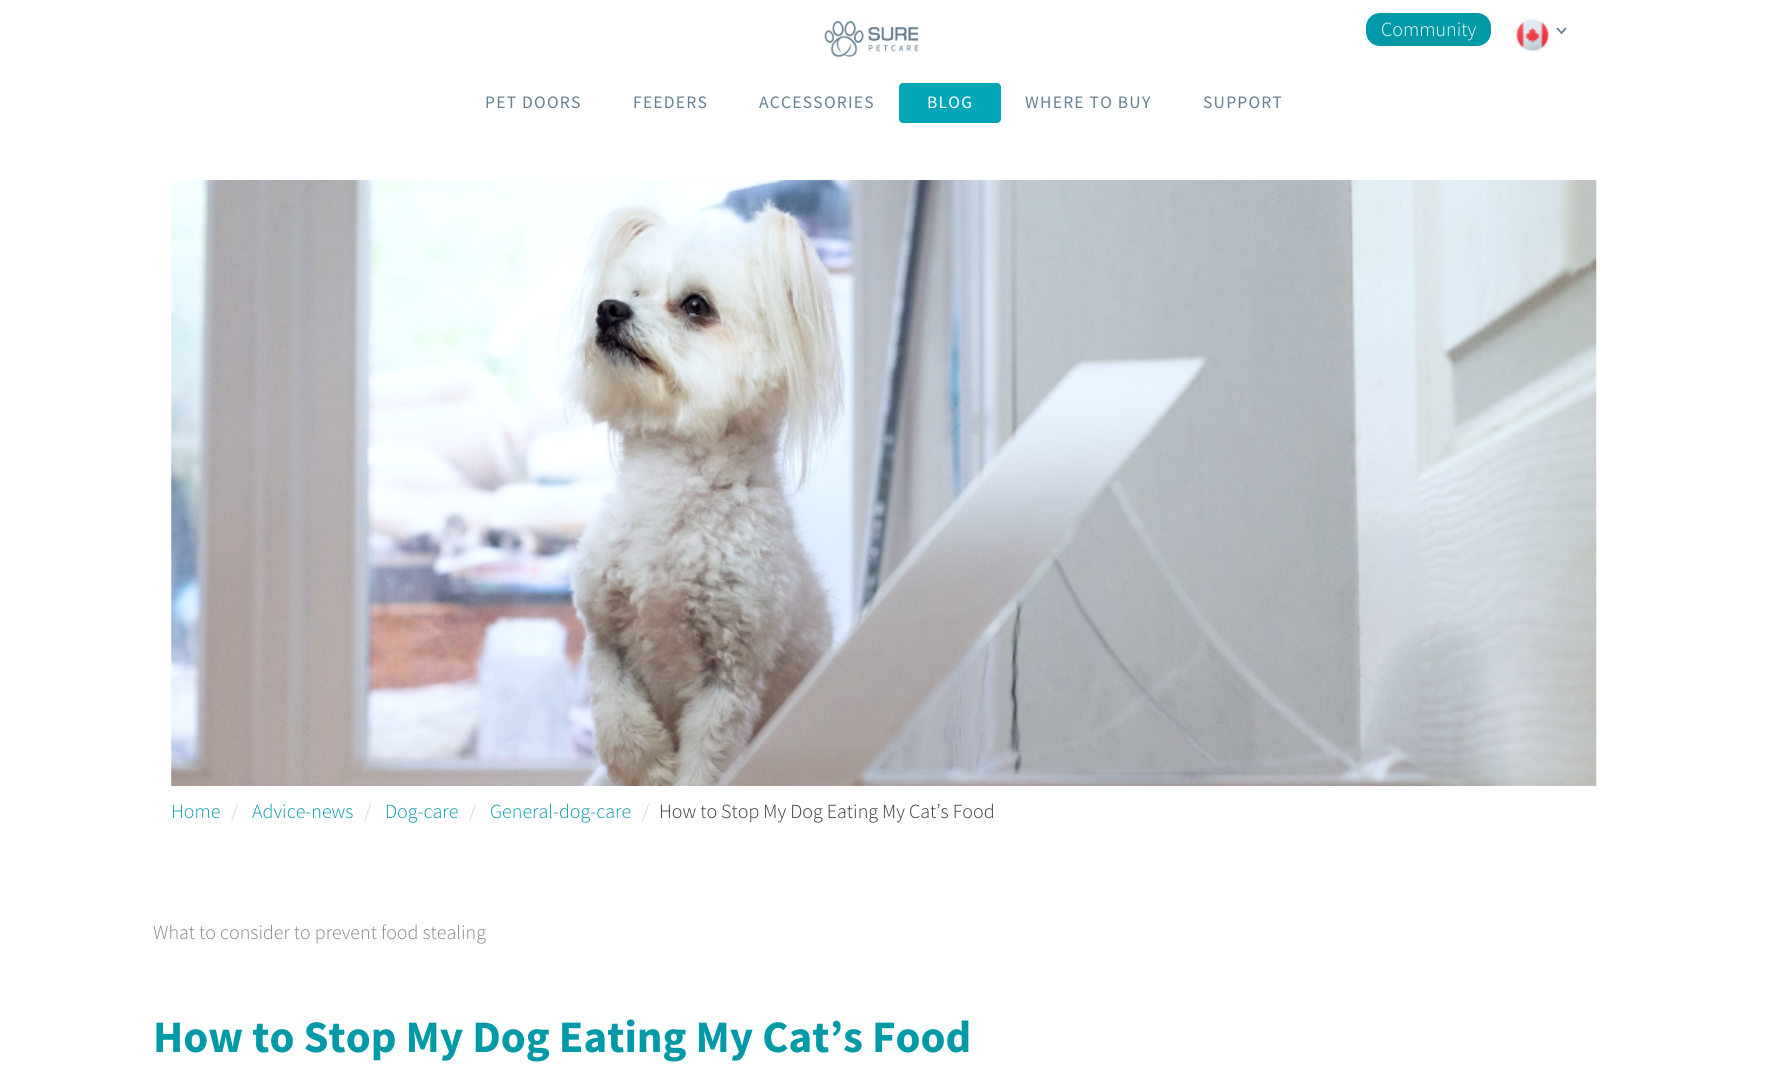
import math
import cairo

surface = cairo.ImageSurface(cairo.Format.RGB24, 1767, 1069)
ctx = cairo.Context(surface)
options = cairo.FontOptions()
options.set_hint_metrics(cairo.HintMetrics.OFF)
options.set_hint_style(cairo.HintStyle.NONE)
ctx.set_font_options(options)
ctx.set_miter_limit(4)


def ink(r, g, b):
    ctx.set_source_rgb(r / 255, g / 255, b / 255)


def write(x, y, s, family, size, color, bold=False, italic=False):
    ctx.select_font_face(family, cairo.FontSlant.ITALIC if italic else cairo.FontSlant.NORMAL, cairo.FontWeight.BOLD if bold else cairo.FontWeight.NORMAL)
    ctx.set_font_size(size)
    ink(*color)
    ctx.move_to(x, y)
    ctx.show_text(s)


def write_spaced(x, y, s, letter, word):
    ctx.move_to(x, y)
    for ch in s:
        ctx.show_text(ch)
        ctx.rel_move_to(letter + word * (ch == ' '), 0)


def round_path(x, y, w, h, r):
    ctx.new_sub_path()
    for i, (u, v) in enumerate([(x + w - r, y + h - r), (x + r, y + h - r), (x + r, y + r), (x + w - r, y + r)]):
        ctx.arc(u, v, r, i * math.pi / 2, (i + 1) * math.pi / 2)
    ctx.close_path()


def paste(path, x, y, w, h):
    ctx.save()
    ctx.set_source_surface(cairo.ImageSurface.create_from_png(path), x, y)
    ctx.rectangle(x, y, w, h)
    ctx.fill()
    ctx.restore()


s1 = dict(family="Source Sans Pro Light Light", size=20, color=(255, 255, 255))
s2 = dict(family="Source Sans Pro Light Light", size=20, color=(0, 153, 168))
s3 = dict(family="Source Sans Pro Light Light", size=20, color=(204, 204, 204))
s4 = dict(family="Source Sans Pro Light Light", size=20, color=(51, 51, 51))
s5 = dict(family="Source Sans Pro Light Light", size=20, color=(131, 131, 131))
s6 = dict(family="Source Sans Pro", size=45, color=(0, 153, 168), bold=True)

ink(255, 255, 255)
ctx.paint()
paste("pic1.png", 824, 20, 95, 38)
ink(0, 153, 168)
round_path(1366, 13, 125, 33, 14)
ctx.fill()
write(1381, 36, "Community", **s1)
paste("pic2.png", 1516, 19, 33, 33)
ctx.new_path()
ctx.move_to(1566, 28)
ctx.line_to(1561.5, 33)
ctx.line_to(1557, 28)
ink(93, 128, 144)
ctx.set_line_width(1.8)
ctx.stroke()
ctx.select_font_face("Source Sans Pro")
ctx.set_font_size(17.5)
ink(101, 127, 145)
write_spaced(485, 108, "PET DOORS", 1.25, 0)
write_spaced(633, 108, "FEEDERS", 1.25, 0)
write_spaced(759, 108, "ACCESSORIES", 1.25, 0)
ink(2, 166, 182)
round_path(899, 83, 102, 40, 4)
ctx.fill()
ink(255, 255, 255)
write_spaced(927, 108, "BLOG", 1.25, 0)
ink(101, 127, 145)
write_spaced(1025, 108, "WHERE TO BUY", 1.25, 0)
write_spaced(1203, 108, "SUPPORT", 1.25, 0)
paste("pic3.png", 171, 180, 1426, 607)
ink(255, 255, 255)
round_path(153, 786, 1218, 49, 5)
ctx.fill()
write(171, 818, "Home", **s2)
write(231, 818, "/", **s3)
write(252, 818, "Advice-news", **s2)
write(364, 818, "/", **s3)
write(385, 818, "Dog-care", **s2)
write(469, 818, "/", **s3)
write(490, 818, "General-dog-care", **s2)
write(642, 818, "/", **s3)
write(659, 818, "How to Stop My Dog Eating My Cat’s Food", **s4)
write(153, 939, "What to consider to prevent food stealing", **s5)
write(153, 1052, "How to Stop My Dog Eating My Cat’s Food", **s6)
surface.write_to_png("screenshot.png")
